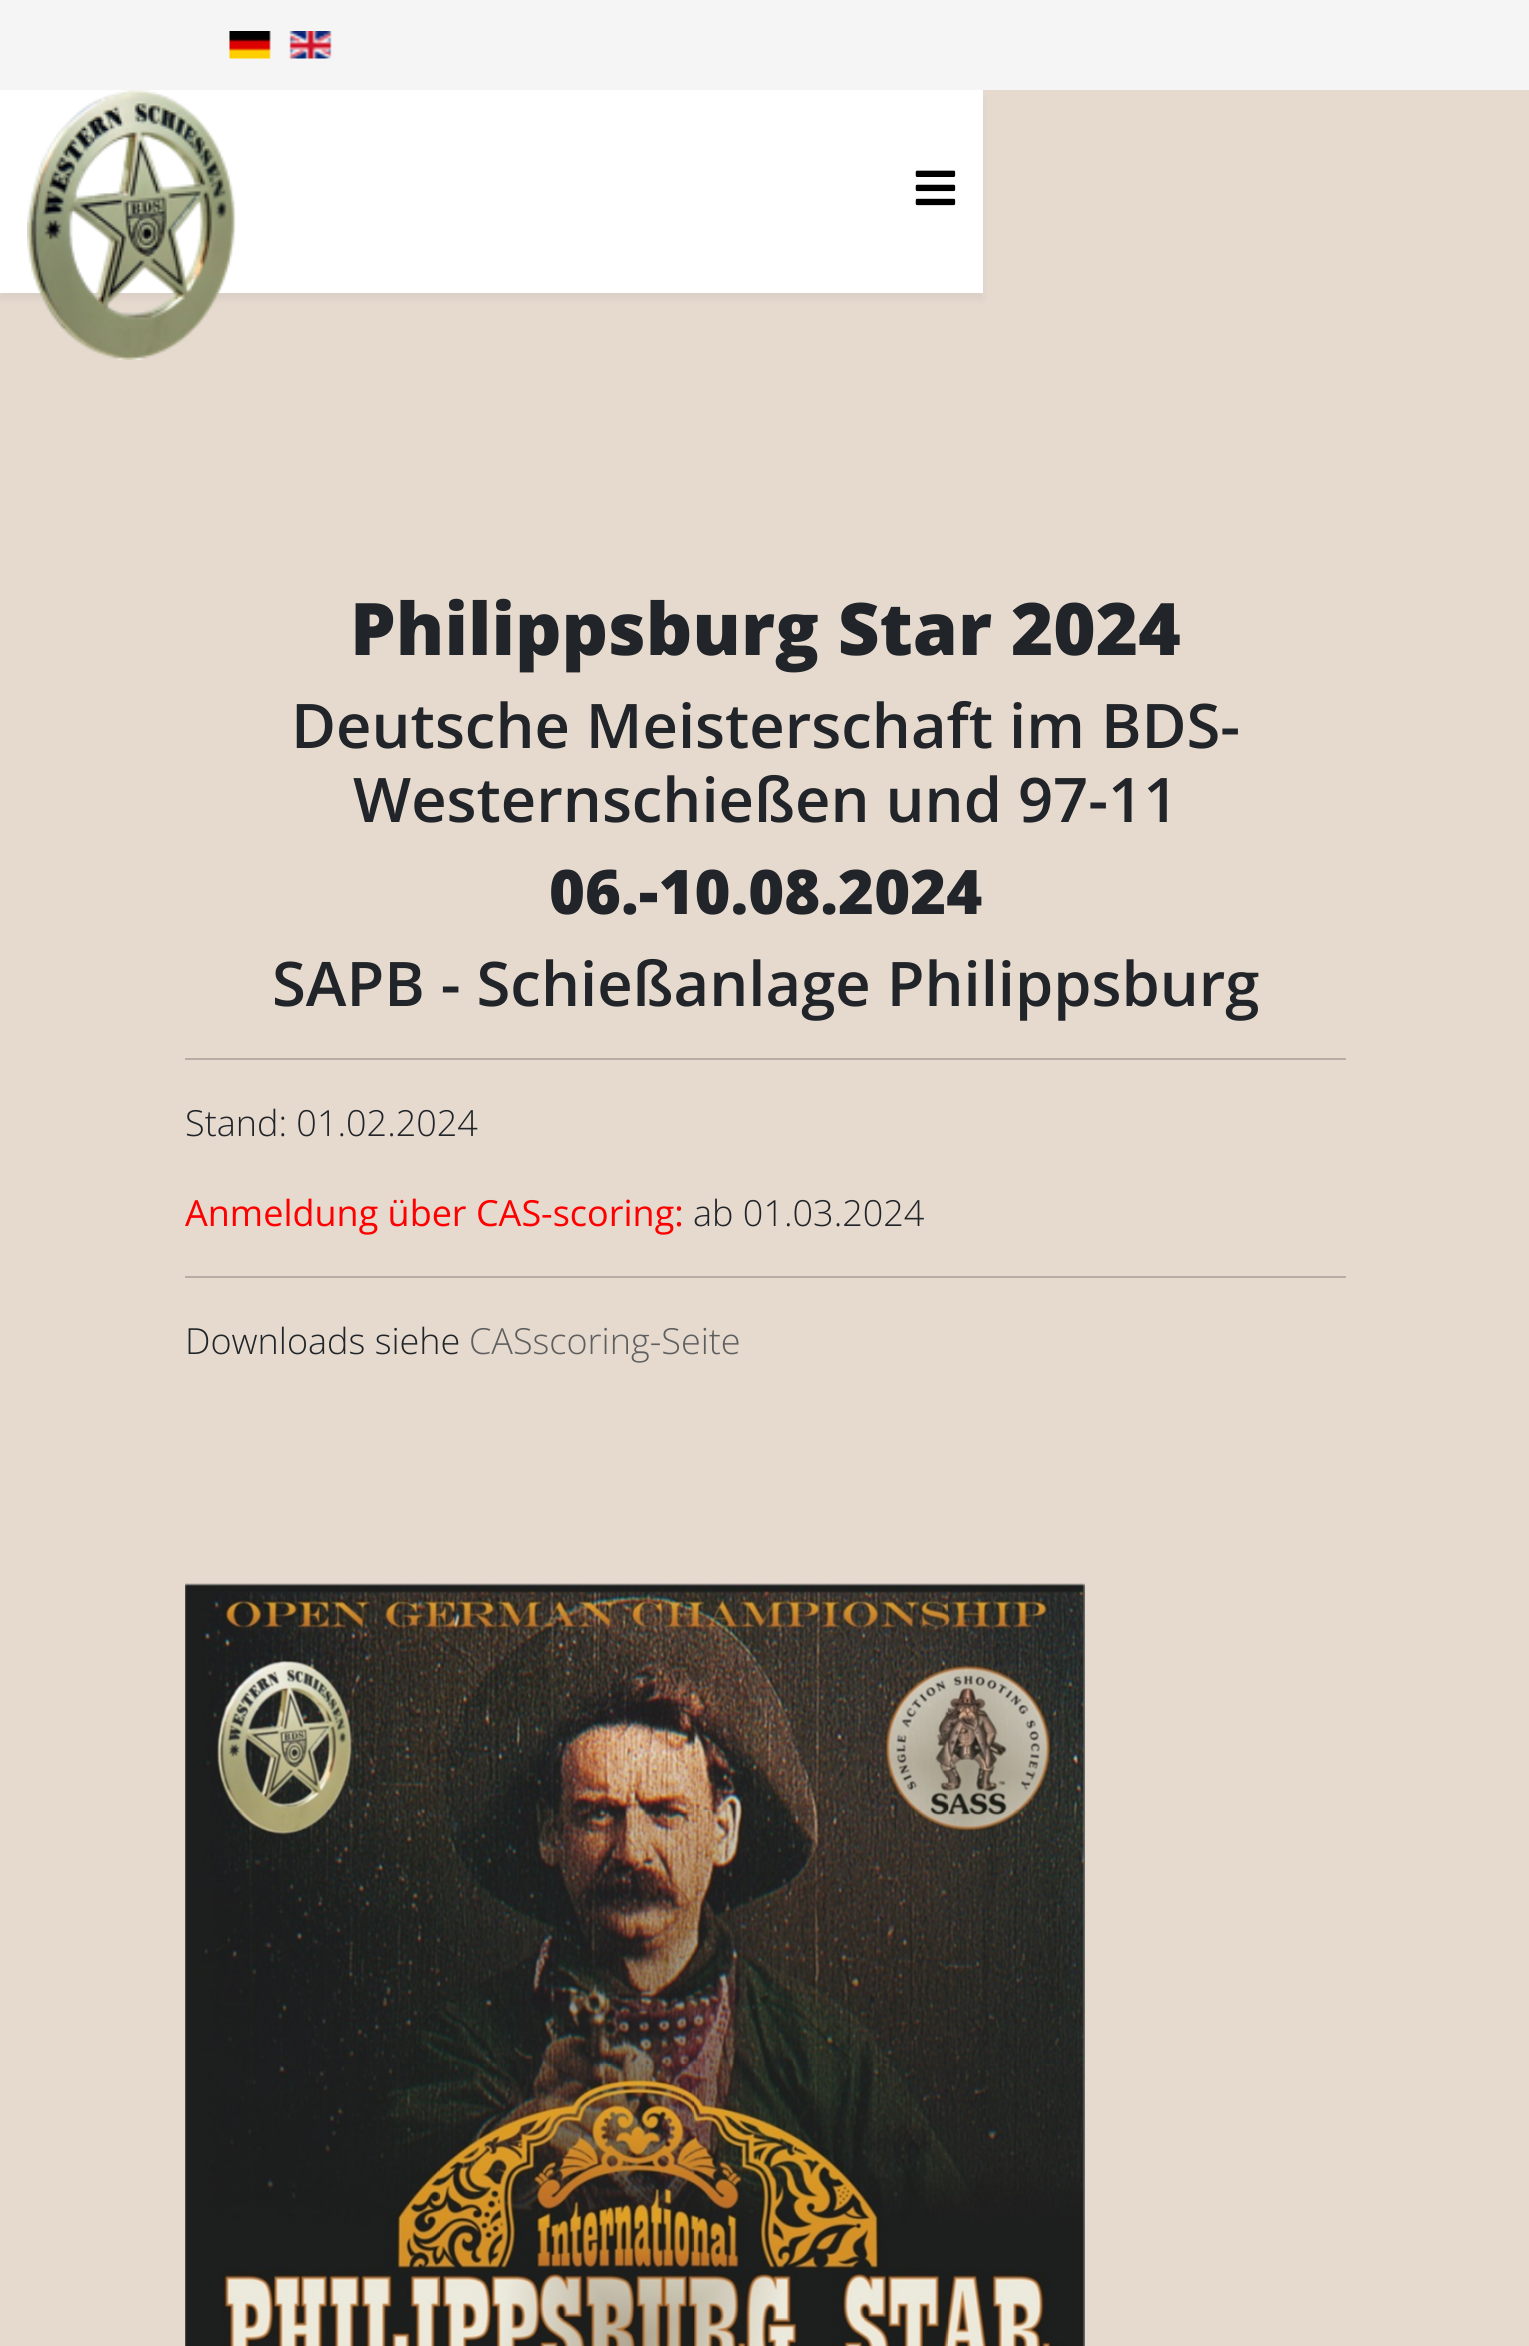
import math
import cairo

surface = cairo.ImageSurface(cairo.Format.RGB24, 1529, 2346)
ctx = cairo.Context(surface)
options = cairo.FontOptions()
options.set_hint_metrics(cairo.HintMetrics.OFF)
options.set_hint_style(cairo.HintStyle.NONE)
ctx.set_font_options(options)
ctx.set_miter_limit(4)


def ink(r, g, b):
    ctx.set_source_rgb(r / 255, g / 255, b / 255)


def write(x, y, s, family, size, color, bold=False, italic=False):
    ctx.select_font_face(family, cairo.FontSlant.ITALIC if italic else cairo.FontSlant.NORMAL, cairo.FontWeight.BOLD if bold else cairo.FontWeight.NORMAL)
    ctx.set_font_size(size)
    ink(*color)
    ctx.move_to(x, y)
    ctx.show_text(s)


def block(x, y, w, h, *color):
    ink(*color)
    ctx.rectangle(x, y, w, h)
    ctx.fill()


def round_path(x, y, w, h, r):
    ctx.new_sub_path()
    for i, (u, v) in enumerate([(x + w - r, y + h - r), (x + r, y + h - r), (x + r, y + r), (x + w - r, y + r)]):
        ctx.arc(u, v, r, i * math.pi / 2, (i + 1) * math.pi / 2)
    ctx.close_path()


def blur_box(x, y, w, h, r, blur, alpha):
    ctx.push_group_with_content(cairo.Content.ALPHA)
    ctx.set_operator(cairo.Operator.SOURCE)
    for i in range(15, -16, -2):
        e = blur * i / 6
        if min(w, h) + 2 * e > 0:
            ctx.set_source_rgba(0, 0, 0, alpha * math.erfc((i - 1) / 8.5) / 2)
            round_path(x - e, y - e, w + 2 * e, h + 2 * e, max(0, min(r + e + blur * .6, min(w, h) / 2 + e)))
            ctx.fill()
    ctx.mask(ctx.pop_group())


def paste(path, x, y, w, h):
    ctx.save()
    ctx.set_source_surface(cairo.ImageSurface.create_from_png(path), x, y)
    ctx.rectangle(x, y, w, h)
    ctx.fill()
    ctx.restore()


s1 = dict(family="Open Sans ExtraBold", size=72.5, color=(33, 37, 41))
s2 = dict(family="Open Sans SemiBold", size=61.5, color=(33, 37, 41))
s3 = dict(family="Open Sans ExtraBold", size=61.5, color=(33, 37, 41))
s4 = dict(family="Open Sans Light", size=36, color=(33, 37, 41))
s5 = dict(family="Open Sans", size=36, color=(255, 0, 0))
s6 = dict(family="Open Sans Light", size=36, color=(95, 95, 95))

ink(230, 218, 207)
ctx.paint()
block(0, 0, 1529, 90, 245, 245, 245)
paste("pic1.png", 229, 31, 42, 28)
paste("pic2.png", 289, 31, 43, 28)
ink(0, 0, 0)
blur_box(0, 97, 983, 202, 0, 3.5, 0.05)
block(0, 90, 983, 203, 255, 255, 255)
paste("pic3.png", 27, 90, 209, 270)
paste("pic4.png", 915, 170, 41, 36)
write(350, 655, "Philippsburg Star 2024", **s1)
write(291, 748, "Deutsche Meisterschaft im BDS-", **s2)
write(353, 822, "Westernschießen und 97-11", **s2)
write(549, 914, "06.-10.08.2024", **s3)
write(272, 1006, "SAPB - Schießanlage Philippsburg", **s2)
block(185, 1058, 1161, 2, 181, 173, 166)
write(185, 1136, "Stand: 01.02.2024", **s4)
write(185, 1226, "Anmeldung über CAS-scoring:", **s5)
write(693, 1226, "ab 01.03.2024", **s4)
block(185, 1276, 1161, 2, 181, 173, 166)
write(185, 1354, "Downloads siehe", **s4)
write(469, 1354, "CASscoring-Seite", **s6)
paste("pic5.png", 185, 1583, 900, 763)
surface.write_to_png("screenshot.png")
